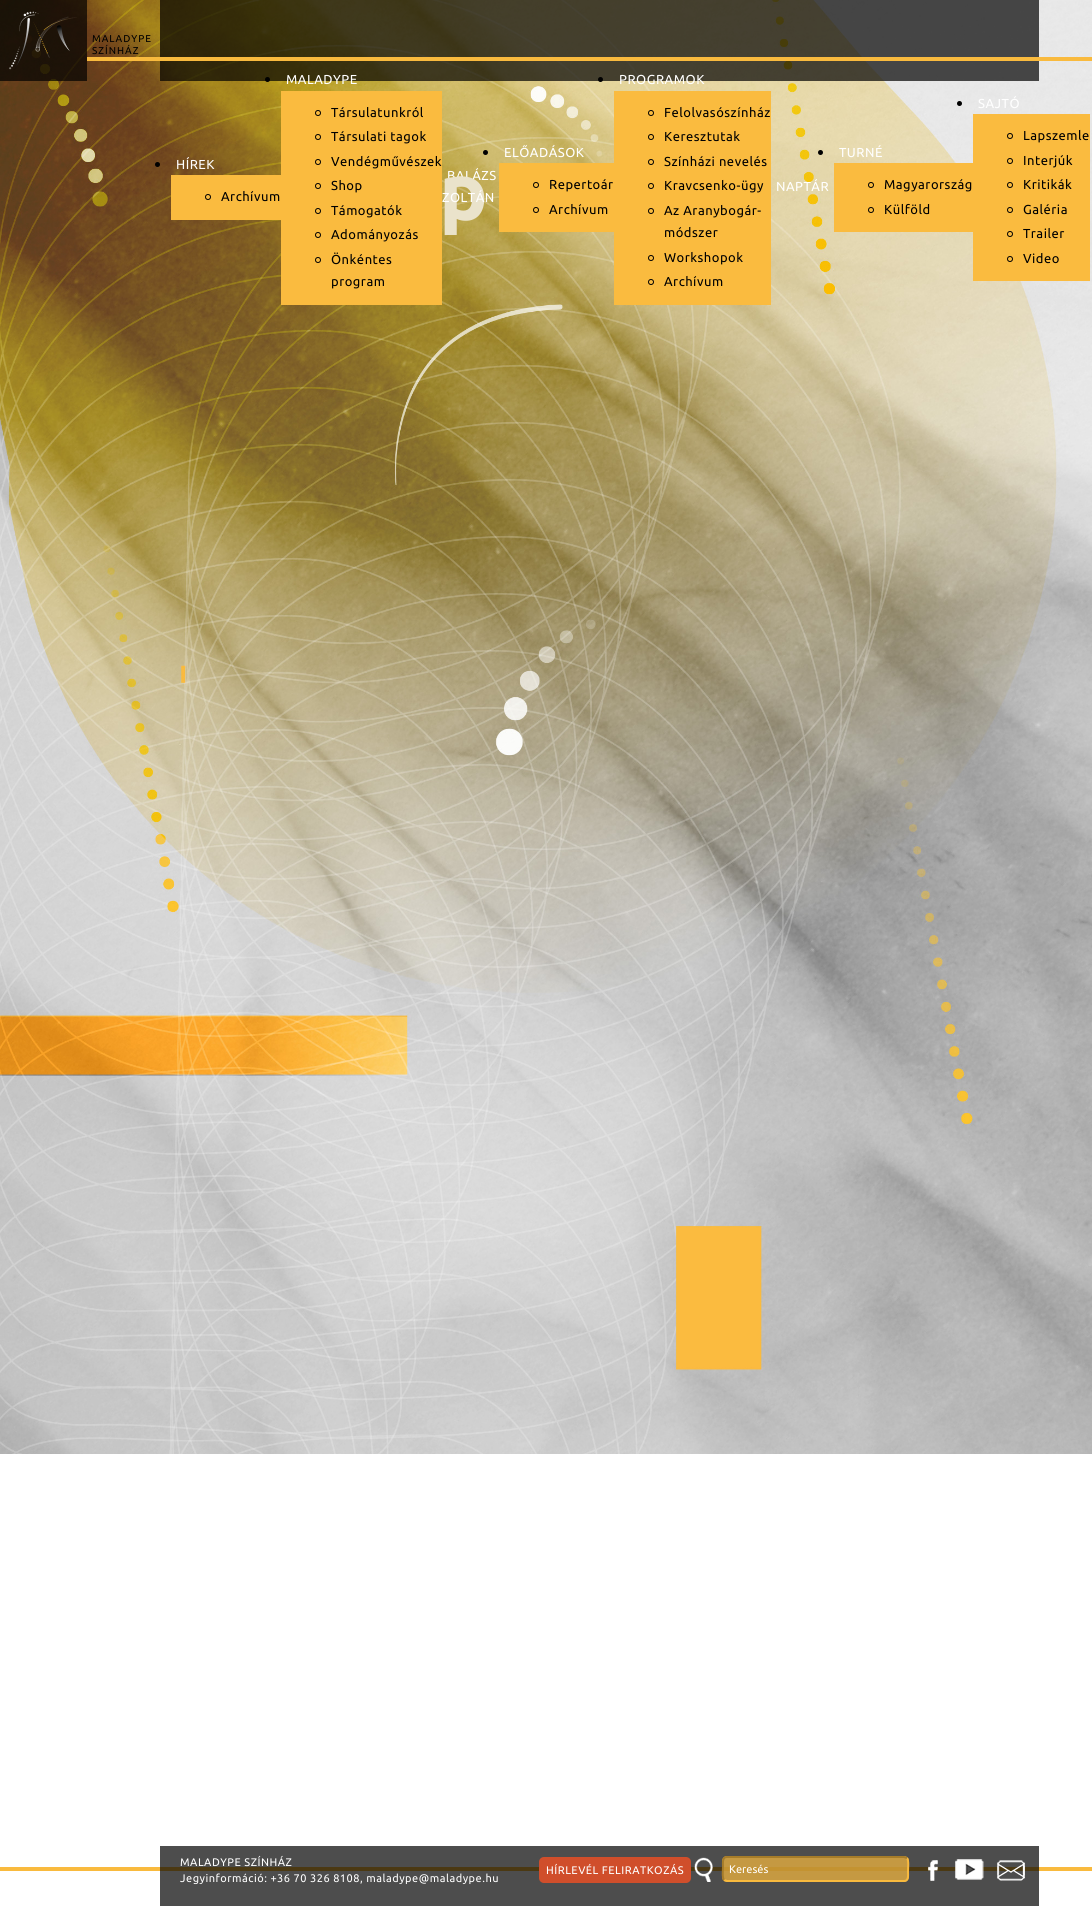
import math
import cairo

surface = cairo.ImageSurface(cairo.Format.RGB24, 1092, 1906)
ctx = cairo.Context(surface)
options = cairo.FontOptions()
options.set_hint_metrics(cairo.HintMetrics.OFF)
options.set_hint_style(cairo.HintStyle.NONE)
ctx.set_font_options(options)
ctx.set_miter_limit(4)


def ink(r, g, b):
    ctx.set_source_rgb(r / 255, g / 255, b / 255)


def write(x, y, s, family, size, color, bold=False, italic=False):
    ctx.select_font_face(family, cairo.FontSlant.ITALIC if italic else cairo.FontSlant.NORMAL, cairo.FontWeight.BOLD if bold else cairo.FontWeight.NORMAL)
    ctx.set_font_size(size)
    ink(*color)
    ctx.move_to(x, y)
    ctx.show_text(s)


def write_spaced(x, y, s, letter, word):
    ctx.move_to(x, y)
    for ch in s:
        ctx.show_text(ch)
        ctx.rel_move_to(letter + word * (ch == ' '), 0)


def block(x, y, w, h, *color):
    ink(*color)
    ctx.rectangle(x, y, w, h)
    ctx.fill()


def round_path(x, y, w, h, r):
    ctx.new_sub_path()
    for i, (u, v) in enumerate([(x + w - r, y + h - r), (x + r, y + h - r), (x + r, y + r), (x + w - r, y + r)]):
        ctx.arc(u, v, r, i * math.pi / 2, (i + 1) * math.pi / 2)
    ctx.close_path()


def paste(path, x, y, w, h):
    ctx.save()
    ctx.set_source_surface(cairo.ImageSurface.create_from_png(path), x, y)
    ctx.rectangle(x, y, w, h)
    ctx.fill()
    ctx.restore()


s1 = dict(family="Ubuntu", size=11, color=(255, 255, 255))

ink(255, 255, 255)
ctx.paint()
block(160, 1846, 879, 60, 77, 77, 77)
paste("pic1.png", 0, 0, 1092, 1454)
ctx.set_source_rgba(0.004, 0.004, 0.004, 0.7)
ctx.rectangle(0, 0, 87, 81)
ctx.fill()
paste("pic2.png", 9, 11, 68, 59)
ctx.select_font_face("Ubuntu")
ctx.set_font_size(10)
ink(0, 0, 0)
write_spaced(92, 42, "MALADYPE", 1, 0)
write_spaced(92, 54, "SZÍNHÁZ", 1, 0)
ctx.set_source_rgba(0.004, 0.004, 0.004, 0.7)
ctx.rectangle(160, 0, 879, 81)
ctx.fill()
block(87, 57, 1005, 4, 249, 186, 62)
ink(0, 0, 0)
ctx.arc(157.5, 164.5, 2.5, 0, 2 * math.pi)
ctx.fill()
ctx.set_font_size(13)
ink(255, 255, 255)
write_spaced(176, 169, "HÍREK", 0.5, 0)
block(171, 175, 110, 45, 250, 187, 63)
ctx.new_path()
ctx.arc(208, 197, 2.5, 0, 2 * math.pi)
ink(0, 0, 0)
ctx.set_line_width(1)
ctx.stroke()
write_spaced(221, 201, "Archívum", 0.5, 0)
ctx.new_path()
ctx.arc(267.5, 79.5, 2.5, 0, 2 * math.pi)
ctx.fill()
ink(255, 255, 255)
write_spaced(286, 84, "MALADYPE", 0.5, 0)
block(281, 91, 161, 214, 250, 187, 63)
ctx.new_path()
ctx.arc(318, 113, 2.5, 0, 2 * math.pi)
ink(0, 0, 0)
ctx.stroke()
write_spaced(331, 117, "Társulatunkról", 0.5, 0)
ctx.new_path()
ctx.arc(318, 137, 2.5, 0, 2 * math.pi)
ctx.stroke()
write_spaced(331, 141, "Társulati tagok", 0.5, 0)
ctx.new_path()
ctx.arc(318, 162, 2.5, 0, 2 * math.pi)
ctx.stroke()
write_spaced(331, 166, "Vendégművészek", 0.5, 0)
ctx.new_path()
ctx.arc(318, 186, 2.5, 0, 2 * math.pi)
ctx.stroke()
write_spaced(331, 190, "Shop", 0.5, 0)
ctx.new_path()
ctx.arc(318, 211, 2.5, 0, 2 * math.pi)
ctx.stroke()
write_spaced(331, 215, "Támogatók", 0.5, 0)
ctx.new_path()
ctx.arc(318, 235, 2.5, 0, 2 * math.pi)
ctx.stroke()
write_spaced(331, 239, "Adományozás", 0.5, 0)
ctx.new_path()
ctx.arc(318, 260, 2.5, 0, 2 * math.pi)
ctx.stroke()
write_spaced(331, 264, "Önkéntes", 0.5, 0)
write_spaced(331, 286, "program", 0.5, 0)
ink(255, 255, 255)
write_spaced(447, 180, "BALÁZS", 0.5, 0)
ctx.select_font_face("Ubuntu", cairo.FontSlant.NORMAL, cairo.FontWeight.BOLD)
ctx.set_font_size(81)
ink(234, 227, 203)
write_spaced(439, 220, "p", 6, 0)
ctx.select_font_face("Ubuntu")
ctx.set_font_size(13)
ink(255, 255, 255)
write_spaced(442, 202, "ZOLTÁN", 0.5, 0)
ink(0, 0, 0)
ctx.new_path()
ctx.arc(485.5, 152.5, 2.5, 0, 2 * math.pi)
ctx.fill()
ink(255, 255, 255)
write_spaced(504, 157, "ELŐADÁSOK", 0.5, 0)
block(499, 163, 115, 69, 250, 187, 63)
ctx.new_path()
ctx.arc(536, 185, 2.5, 0, 2 * math.pi)
ink(0, 0, 0)
ctx.stroke()
write_spaced(549, 189, "Repertoár", 0.5, 0)
ctx.new_path()
ctx.arc(536, 210, 2.5, 0, 2 * math.pi)
ctx.stroke()
write_spaced(549, 214, "Archívum", 0.5, 0)
ctx.new_path()
ctx.arc(600.5, 79.5, 2.5, 0, 2 * math.pi)
ctx.fill()
ink(255, 255, 255)
write_spaced(619, 84, "PROGRAMOK", 0.5, 0)
block(614, 91, 157, 214, 250, 187, 63)
ctx.new_path()
ctx.arc(651, 113, 2.5, 0, 2 * math.pi)
ink(0, 0, 0)
ctx.stroke()
write_spaced(664, 117, "Felolvasószínház", 0.5, 0)
ctx.new_path()
ctx.arc(651, 137, 2.5, 0, 2 * math.pi)
ctx.stroke()
write_spaced(664, 141, "Keresztutak", 0.5, 0)
ctx.new_path()
ctx.arc(651, 162, 2.5, 0, 2 * math.pi)
ctx.stroke()
write_spaced(664, 166, "Színházi nevelés", 0.5, 0)
ctx.new_path()
ctx.arc(651, 186, 2.5, 0, 2 * math.pi)
ctx.stroke()
write_spaced(664, 190, "Kravcsenko-ügy", 0.5, 0)
ctx.new_path()
ctx.arc(651, 211, 2.5, 0, 2 * math.pi)
ctx.stroke()
write_spaced(664, 215, "Az Aranybogár-", 0.5, 0)
write_spaced(664, 237, "módszer", 0.5, 0)
ctx.new_path()
ctx.arc(651, 258, 2.5, 0, 2 * math.pi)
ctx.stroke()
write_spaced(664, 262, "Workshopok", 0.5, 0)
ctx.new_path()
ctx.arc(651, 282, 2.5, 0, 2 * math.pi)
ctx.stroke()
write_spaced(664, 286, "Archívum", 0.5, 0)
ink(255, 255, 255)
write_spaced(776, 191, "NAPTÁR", 0.5, 0)
ink(0, 0, 0)
ctx.new_path()
ctx.arc(820.5, 152.5, 2.5, 0, 2 * math.pi)
ctx.fill()
ink(255, 255, 255)
write_spaced(839, 157, "TURNÉ", 0.5, 0)
block(834, 163, 139, 69, 250, 187, 63)
ctx.new_path()
ctx.arc(871, 185, 2.5, 0, 2 * math.pi)
ink(0, 0, 0)
ctx.stroke()
write_spaced(884, 189, "Magyarország", 0.5, 0)
ctx.new_path()
ctx.arc(871, 210, 2.5, 0, 2 * math.pi)
ctx.stroke()
write_spaced(884, 214, "Külföld", 0.5, 0)
ctx.new_path()
ctx.arc(959.5, 103.5, 2.5, 0, 2 * math.pi)
ctx.fill()
ink(255, 255, 255)
write_spaced(978, 108, "SAJTÓ", 0.5, 0)
block(973, 114, 117, 167, 250, 187, 63)
ctx.new_path()
ctx.arc(1010, 136, 2.5, 0, 2 * math.pi)
ink(0, 0, 0)
ctx.stroke()
write_spaced(1023, 140, "Lapszemle", 0.5, 0)
ctx.new_path()
ctx.arc(1010, 161, 2.5, 0, 2 * math.pi)
ctx.stroke()
write_spaced(1023, 165, "Interjúk", 0.5, 0)
ctx.new_path()
ctx.arc(1010, 185, 2.5, 0, 2 * math.pi)
ctx.stroke()
write_spaced(1023, 189, "Kritikák", 0.5, 0)
ctx.new_path()
ctx.arc(1010, 210, 2.5, 0, 2 * math.pi)
ctx.stroke()
write_spaced(1023, 214, "Galéria", 0.5, 0)
ctx.new_path()
ctx.arc(1010, 234, 2.5, 0, 2 * math.pi)
ctx.stroke()
write_spaced(1023, 238, "Trailer", 0.5, 0)
ctx.new_path()
ctx.arc(1010, 259, 2.5, 0, 2 * math.pi)
ctx.stroke()
write_spaced(1023, 263, "Video", 0.5, 0)
ctx.set_font_size(11)
ink(255, 255, 255)
write_spaced(180, 1866, "MALADYPE SZÍNHÁZ", 0.5, 0)
write_spaced(180, 1882, "Jegyinformáció: +36 70 326 8108, maladype@maladype.hu", 0.5, 0)
block(0, 1867, 1092, 4, 249, 186, 62)
block(160, 1867, 879, 4, 75, 57, 19)
ink(208, 78, 43)
round_path(539, 1857, 152, 26, 5)
ctx.fill()
ink(255, 255, 255)
write_spaced(546, 1874, "HÍRLEVÉL FELIRATKOZÁS", 0.5, 0)
paste("pic3.png", 694, 1857, 19, 25)
ctx.set_source_rgba(0.976, 0.729, 0.243, 0.7)
round_path(722, 1856, 187, 26, 5)
ctx.fill()
ctx.new_path()
ctx.move_to(907, 1858)
ctx.curve_to(909, 1860.5, 908, 1868.5, 908, 1871.5)
ctx.curve_to(908, 1875, 909, 1881, 904, 1881)
ctx.line_to(727, 1881)
ctx.line_to(724, 1880)
ink(249, 186, 62)
ctx.set_line_width(2)
ctx.stroke()
ctx.new_path()
ctx.move_to(724, 1880)
ctx.curve_to(722, 1877.5, 723, 1869.5, 723, 1866.5)
ctx.curve_to(723, 1863, 722, 1857, 727, 1857)
ctx.line_to(904, 1857)
ctx.line_to(907, 1858)
ink(166, 124, 41)
ctx.stroke()
write(729, 1873, "Keresés", **s1)
paste("pic4.png", 928, 1860, 10, 21)
paste("pic5.png", 955, 1859, 29, 21)
paste("pic6.png", 997, 1860, 28, 21)
surface.write_to_png("screenshot.png")
